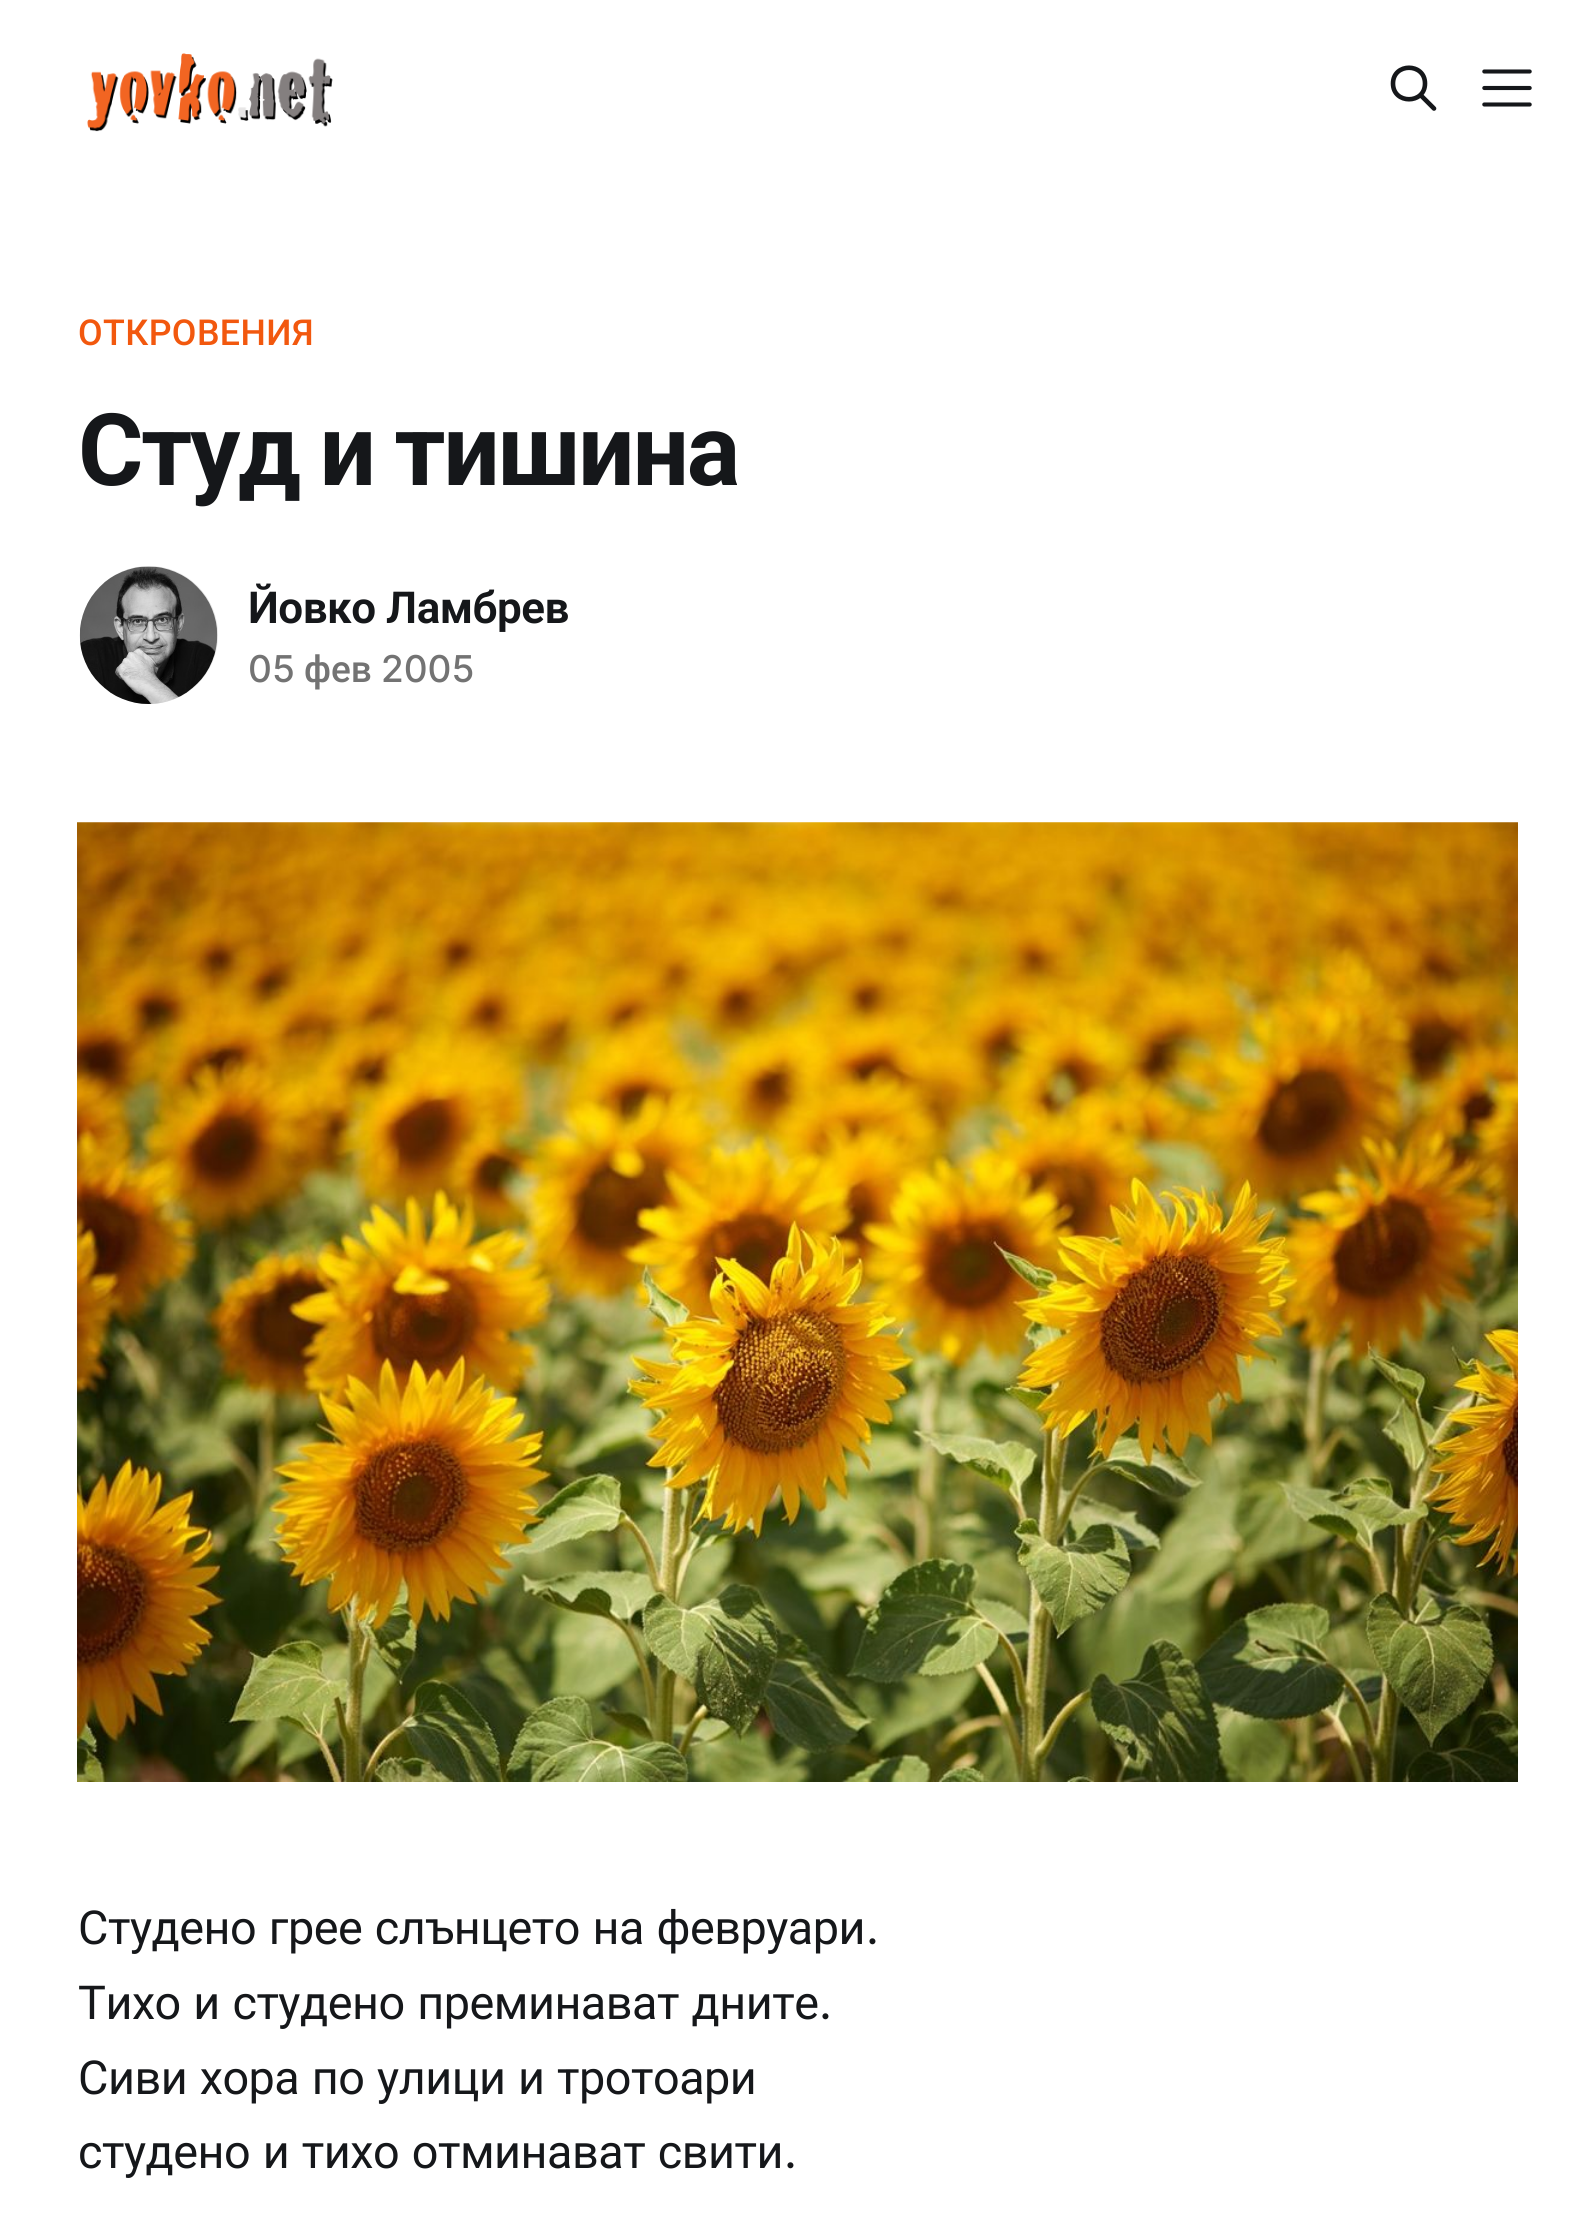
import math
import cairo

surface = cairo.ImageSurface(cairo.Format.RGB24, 1593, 2232)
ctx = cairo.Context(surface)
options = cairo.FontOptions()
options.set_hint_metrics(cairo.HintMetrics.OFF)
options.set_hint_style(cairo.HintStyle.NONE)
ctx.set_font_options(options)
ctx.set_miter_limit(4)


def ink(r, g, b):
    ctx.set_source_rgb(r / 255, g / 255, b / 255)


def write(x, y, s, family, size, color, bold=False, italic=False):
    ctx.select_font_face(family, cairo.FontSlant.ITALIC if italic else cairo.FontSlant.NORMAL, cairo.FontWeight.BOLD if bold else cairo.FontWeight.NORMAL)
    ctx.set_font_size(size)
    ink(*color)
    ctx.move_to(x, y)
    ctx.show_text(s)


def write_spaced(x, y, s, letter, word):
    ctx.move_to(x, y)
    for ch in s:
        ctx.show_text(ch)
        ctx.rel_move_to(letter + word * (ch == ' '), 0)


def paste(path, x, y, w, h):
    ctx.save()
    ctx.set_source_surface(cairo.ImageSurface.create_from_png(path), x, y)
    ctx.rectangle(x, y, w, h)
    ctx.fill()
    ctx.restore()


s1 = dict(family="Inter Medium", size=37, color=(115, 115, 115))
s2 = dict(family="Roboto Medium", size=37, color=(115, 115, 115))

ink(255, 255, 255)
ctx.paint()
paste("pic1.png", 87, 53, 246, 79)
ctx.new_path()
ctx.move_to(1434, 108.5)
ctx.line_to(1420.5, 95)
ctx.move_to(1425, 83.5)
ctx.curve_to(1425, 104.5, 1393, 104.5, 1393, 83.5)
ctx.curve_to(1393, 62.5, 1425, 62.5, 1425, 83.5)
ctx.close_path()
ink(21, 23, 26)
ctx.set_line_width(4.6)
ctx.set_line_cap(cairo.LineCap.ROUND)
ctx.set_line_join(cairo.LineJoin.ROUND)
ctx.stroke()
paste("pic2.png", 1482, 69, 50, 38)
ctx.select_font_face("Roboto Medium")
ctx.set_font_size(35.75)
ink(242, 88, 14)
write_spaced(78, 345, "ОТКРОВЕНИЯ", 0.4, 0)
ctx.select_font_face("Roboto", cairo.FontSlant.NORMAL, cairo.FontWeight.BOLD)
ctx.set_font_size(100)
ink(21, 23, 26)
write_spaced(78, 485, "Студ и тишина", -2.25, -2)
ink(230, 230, 230)
ctx.new_path()
ctx.arc(149, 635, 73, 0, 2 * math.pi)
ctx.fill_preserve()
ink(255, 255, 255)
ctx.set_line_width(8)
ctx.set_line_cap(cairo.LineCap.BUTT)
ctx.set_line_join(cairo.LineJoin.MITER)
ctx.stroke()
paste("pic3.png", 79, 566, 139, 138)
ctx.select_font_face("Roboto SemiBold")
ctx.set_font_size(44)
ink(21, 23, 26)
write_spaced(248, 623, "Йовко Ламбрев", -0.5, 0)
write(248, 682, "05", **s1)
write(304, 682, "фев", **s2)
write(381, 682, "2005", **s1)
paste("pic4.png", 77, 822, 1441, 960)
ctx.select_font_face("Roboto")
ctx.set_font_size(46.75)
ink(21, 23, 26)
write_spaced(78, 1944, "Студено грее слънцето на февруари", -0.5, 1.5)
ctx.select_font_face("Inter")
write_spaced(866, 1944, ".", -0.5, 0)
ctx.select_font_face("Roboto")
write_spaced(78, 2019, "Тихо и студено преминават дните", -0.5, 1.5)
ctx.select_font_face("Inter")
write_spaced(819, 2019, ".", -0.5, 0)
ctx.select_font_face("Roboto")
write_spaced(78, 2094, "Сиви хора по улици и тротоари", -0.5, 1.5)
write_spaced(78, 2168, "студено и тихо отминават свити", -0.5, 1.5)
ctx.select_font_face("Inter")
write_spaced(784, 2168, ".", -0.5, 0)
surface.write_to_png("screenshot.png")
